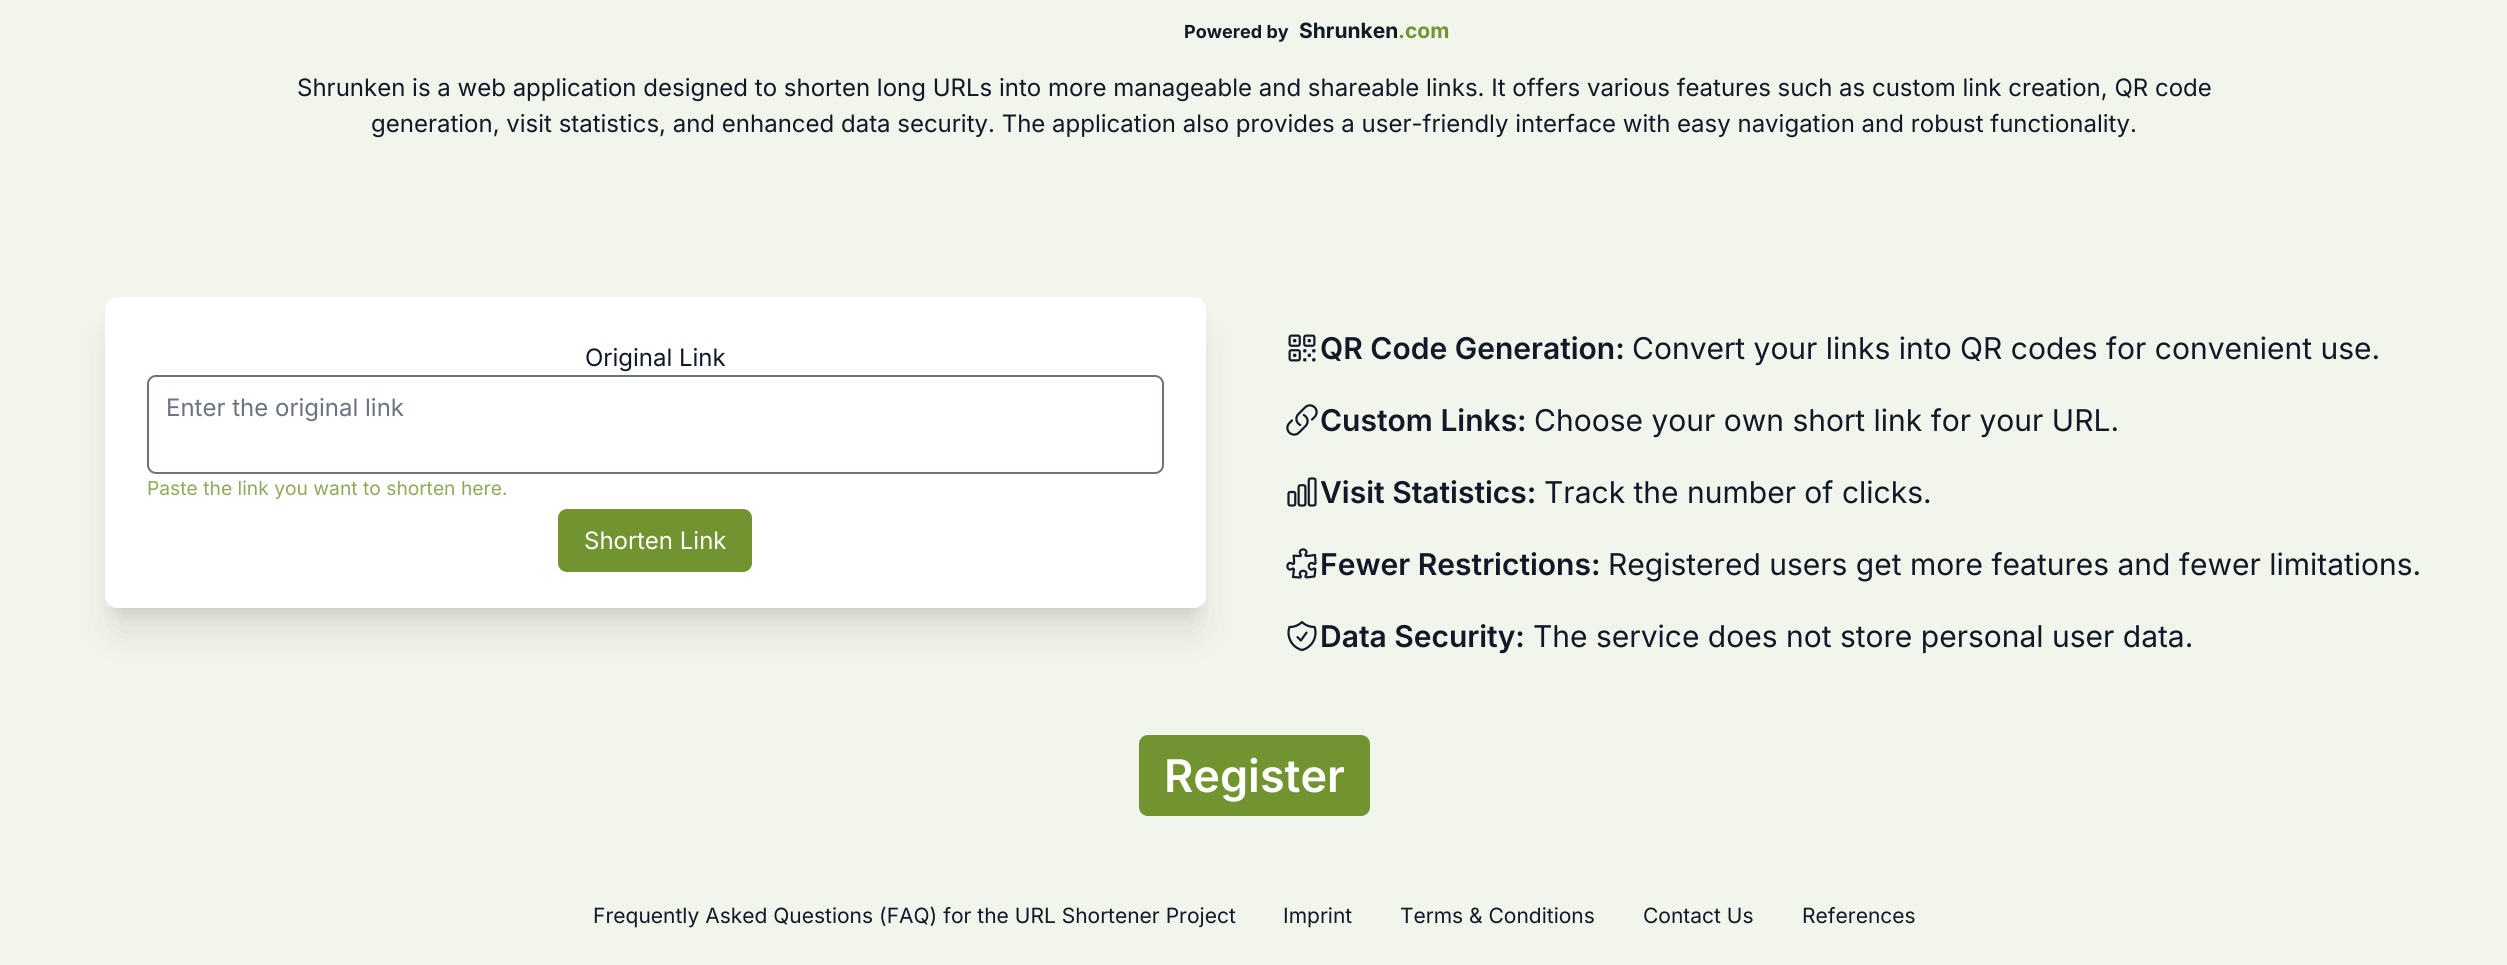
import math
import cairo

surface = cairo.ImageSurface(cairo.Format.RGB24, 2507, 965)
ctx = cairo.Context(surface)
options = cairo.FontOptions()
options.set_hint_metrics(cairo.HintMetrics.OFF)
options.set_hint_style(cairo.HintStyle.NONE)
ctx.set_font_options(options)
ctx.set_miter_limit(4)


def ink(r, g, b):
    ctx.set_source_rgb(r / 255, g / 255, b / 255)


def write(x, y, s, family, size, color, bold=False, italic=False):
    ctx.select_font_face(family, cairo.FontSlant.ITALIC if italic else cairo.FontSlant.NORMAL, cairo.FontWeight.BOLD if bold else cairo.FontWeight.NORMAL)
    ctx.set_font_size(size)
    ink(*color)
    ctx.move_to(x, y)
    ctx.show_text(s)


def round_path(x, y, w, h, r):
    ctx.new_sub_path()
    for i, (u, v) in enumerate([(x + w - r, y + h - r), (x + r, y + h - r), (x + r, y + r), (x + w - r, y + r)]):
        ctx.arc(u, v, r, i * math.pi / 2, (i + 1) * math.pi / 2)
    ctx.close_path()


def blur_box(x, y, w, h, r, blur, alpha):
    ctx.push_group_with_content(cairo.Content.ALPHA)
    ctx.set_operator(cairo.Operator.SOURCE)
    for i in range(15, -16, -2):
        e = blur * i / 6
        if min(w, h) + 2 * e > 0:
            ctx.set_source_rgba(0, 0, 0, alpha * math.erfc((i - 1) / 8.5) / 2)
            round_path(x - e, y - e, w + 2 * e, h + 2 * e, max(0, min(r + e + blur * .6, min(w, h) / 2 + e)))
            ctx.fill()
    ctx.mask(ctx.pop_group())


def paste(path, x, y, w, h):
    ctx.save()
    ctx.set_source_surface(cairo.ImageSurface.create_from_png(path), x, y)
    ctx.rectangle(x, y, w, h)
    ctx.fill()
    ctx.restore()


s1 = dict(family="Inter", size=18, color=(17, 24, 39), bold=True)
s2 = dict(family="Inter", size=21, color=(17, 24, 39), bold=True)
s3 = dict(family="Inter", size=21, color=(113, 148, 48), bold=True)
s4 = dict(family="Inter", size=24, color=(17, 24, 39))
s5 = dict(family="Inter", size=24, color=(107, 114, 128))
s6 = dict(family="Inter", size=19.25, color=(141, 169, 89))
s7 = dict(family="Inter", size=24, color=(255, 255, 255))
s8 = dict(family="Inter SemiBold", size=30, color=(17, 24, 39))
s9 = dict(family="Inter", size=30, color=(17, 24, 39))
s10 = dict(family="Inter SemiBold", size=45, color=(255, 255, 255))
s11 = dict(family="Inter", size=21, color=(17, 24, 39))

ink(241, 245, 235)
ctx.paint()
write(1184, 38, "Powered by", **s1)
write(1299, 38, "Shrunken", **s2)
write(1398, 38, ".com", **s3)
write(297, 96, "Shrunken is a web application designed to shorten long URLs into more manageable and shareable links. It offers various features such as custom link creation, QR code", **s4)
write(371, 132, "generation, visit statistics, and enhanced data security. The application also provides a user-friendly interface with easy navigation and robust functionality.", **s4)
ink(0, 0, 0)
blur_box(114, 318, 1083, 293, 3, 7.5, 0.1)
blur_box(113, 335, 1086, 295, 5, 19, 0.1)
ink(255, 255, 255)
round_path(105, 297, 1101, 311, 12)
ctx.fill()
write(585, 366, "Original Link", **s4)
round_path(148, 376, 1015, 97, 8)
ink(107, 114, 128)
ctx.stroke()
write(166, 416, "Enter the original link", **s5)
write(147, 495, "Paste the link you want to shorten here.", **s6)
ink(113, 148, 48)
round_path(559, 510, 192, 61, 8)
ctx.fill_preserve()
ctx.stroke()
write(584, 549, "Shorten Link", **s7)
paste("pic1.png", 1288, 334, 28, 28)
write(1320, 359, "QR Code Generation:", **s8)
write(1632, 359, "Convert your links into QR codes for convenient use.", **s9)
paste("pic2.png", 1286, 404, 32, 32)
write(1320, 431, "Custom Links:", **s8)
write(1534, 431, "Choose your own short link for your URL.", **s9)
paste("pic3.png", 1287, 477, 30, 30)
write(1320, 503, "Visit Statistics:", **s8)
write(1544, 503, "Track the number of clicks.", **s9)
paste("pic4.png", 1286, 548, 31, 31)
write(1320, 575, "Fewer Restrictions:", **s8)
write(1608, 575, "Registered users get more features and fewer limitations.", **s9)
paste("pic5.png", 1287, 621, 30, 31)
write(1320, 647, "Data Security:", **s8)
write(1533, 647, "The service does not store personal user data.", **s9)
ink(113, 148, 48)
round_path(1140, 736, 229, 79, 8)
ctx.fill_preserve()
ctx.stroke()
write(1164, 792, "Register", **s10)
write(593, 923, "Frequently Asked Questions (FAQ) for the URL Shortener Project", **s11)
write(1283, 923, "Imprint", **s11)
write(1400, 923, "Terms & Conditions", **s11)
write(1643, 923, "Contact Us", **s11)
write(1802, 923, "References", **s11)
surface.write_to_png("screenshot.png")
